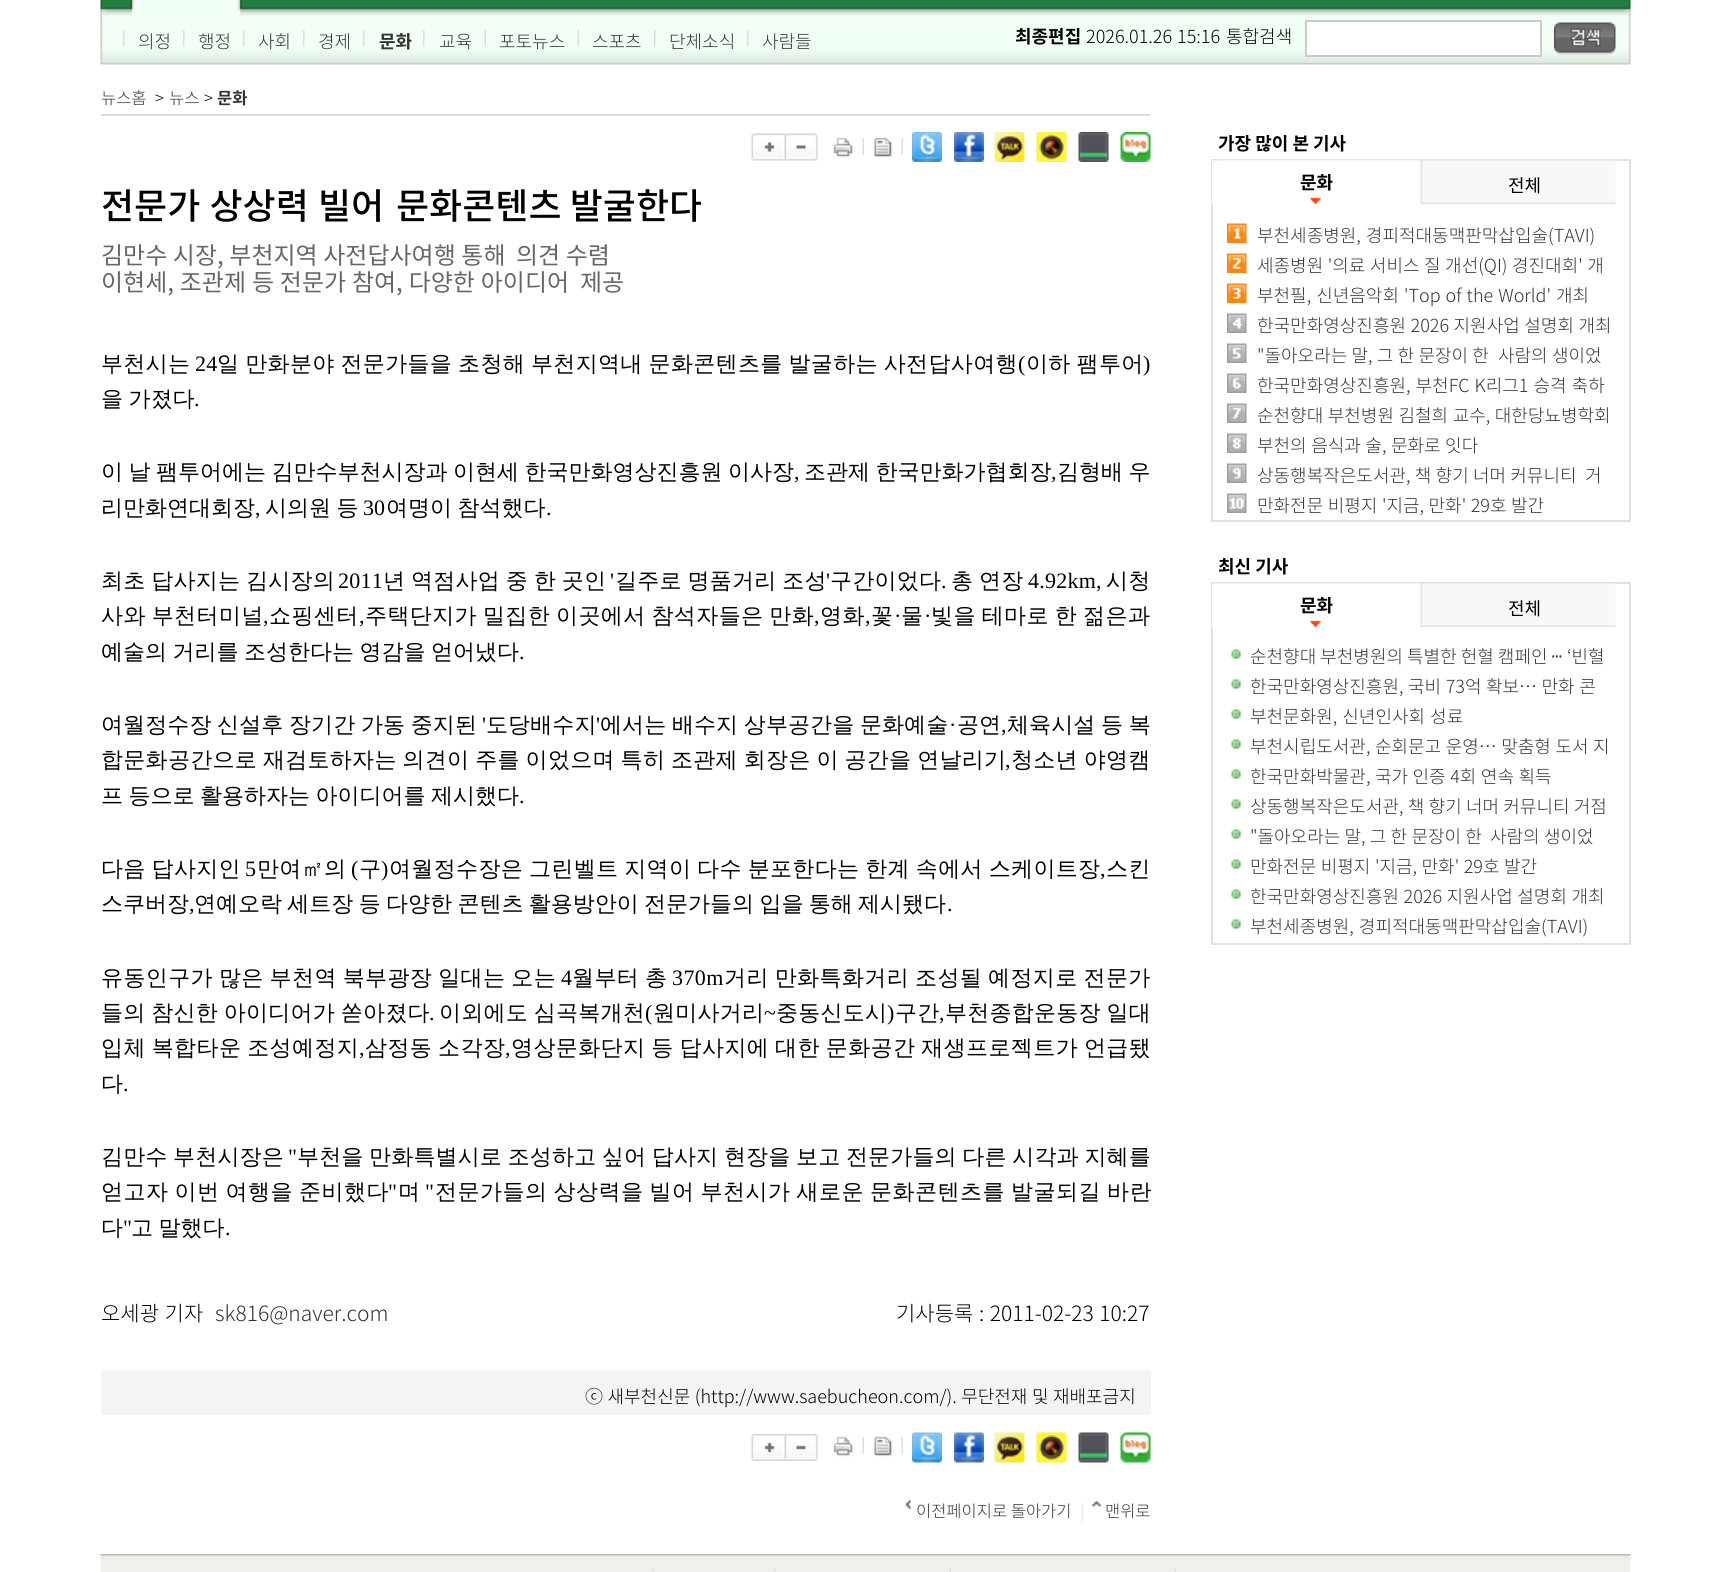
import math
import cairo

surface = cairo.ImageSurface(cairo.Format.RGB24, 1730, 1572)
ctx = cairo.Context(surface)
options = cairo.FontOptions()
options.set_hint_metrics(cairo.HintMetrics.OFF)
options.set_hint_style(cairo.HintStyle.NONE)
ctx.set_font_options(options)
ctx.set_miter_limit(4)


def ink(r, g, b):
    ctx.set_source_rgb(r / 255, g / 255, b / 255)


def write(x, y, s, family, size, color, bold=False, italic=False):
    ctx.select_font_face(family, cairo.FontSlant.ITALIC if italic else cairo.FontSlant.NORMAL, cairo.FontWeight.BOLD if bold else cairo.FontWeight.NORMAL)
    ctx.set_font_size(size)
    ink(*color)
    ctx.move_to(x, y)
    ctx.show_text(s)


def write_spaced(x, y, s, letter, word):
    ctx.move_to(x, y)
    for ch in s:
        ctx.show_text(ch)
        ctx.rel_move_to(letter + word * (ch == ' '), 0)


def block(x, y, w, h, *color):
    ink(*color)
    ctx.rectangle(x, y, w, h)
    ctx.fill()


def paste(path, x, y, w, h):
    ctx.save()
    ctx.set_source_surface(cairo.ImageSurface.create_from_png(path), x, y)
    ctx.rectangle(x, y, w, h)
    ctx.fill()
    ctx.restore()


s1 = dict(family="Noto Sans KR Light", size=18, color=(51, 51, 51))
s2 = dict(family="Noto Sans KR", size=18, color=(51, 51, 51), bold=True)
s3 = dict(family="Noto Sans KR", size=18, color=(0, 0, 0), bold=True)
s4 = dict(family="Noto Sans KR Light", size=18, color=(0, 0, 0))
s5 = dict(family="Noto Sans KR Light", size=16.5, color=(51, 51, 51))
s6 = dict(family="Noto Sans KR Light", size=16.5, color=(0, 0, 0))
s7 = dict(family="Noto Sans KR", size=16.5, color=(51, 51, 51), bold=True)
s8 = dict(family="Noto Sans KR Medium", size=36, color=(0, 0, 0))
s9 = dict(family="Liberation Serif", size=22, color=(0, 0, 0))
s10 = dict(family="WenQuanYi Zen Hei Medium", size=22, color=(0, 0, 0))
s11 = dict(family="Noto Sans KR Light", size=21, color=(51, 51, 51))
s12 = dict(family="Noto Sans KR Light", size=16.5, color=(212, 212, 212))
s13 = dict(family="Noto Sans KR", size=18, color=(0, 0, 0))
s14 = dict(family="DejaVu Sans", size=18, color=(51, 51, 51))

ink(255, 255, 255)
ctx.paint()
paste("pic1.png", 100, 0, 1531, 65)
paste("pic2.png", 130, 0, 112, 16)
paste("pic3.png", 123, 30, 2, 17)
write(138, 48, "의정", **s1)
paste("pic3.png", 183, 30, 2, 17)
write(198, 48, "행정", **s1)
paste("pic3.png", 243, 30, 2, 17)
write(258, 48, "사회", **s1)
paste("pic3.png", 303, 30, 2, 17)
write(318, 48, "경제", **s1)
paste("pic3.png", 363, 30, 2, 17)
write(379, 48, "문화", **s2)
paste("pic3.png", 423, 30, 2, 17)
write(439, 48, "교육", **s1)
paste("pic4.png", 484, 30, 2, 17)
write(499, 48, "포토뉴스", **s1)
paste("pic4.png", 577, 30, 2, 17)
write(592, 48, "스포츠", **s1)
paste("pic3.png", 654, 30, 2, 17)
write(669, 48, "단체소식", **s1)
paste("pic3.png", 747, 30, 2, 17)
write(762, 48, "사람들", **s1)
write(1015, 43, "최종편집", **s3)
ctx.select_font_face("Noto Sans KR Light")
write_spaced(1086, 43, "2026.01.26 15:16", 0, 1)
write(1226, 43, "통합검색", **s4)
ink(255, 255, 255)
ctx.rectangle(1306, 21, 235, 35)
ctx.fill_preserve()
ink(204, 204, 204)
ctx.stroke()
paste("pic5.png", 1554, 22, 62, 34)
write(101, 104, "뉴스홈", **s5)
write(155, 104, ">", **s6)
write(169, 104, "뉴스", **s5)
write(204, 104, ">", **s6)
write(217, 104, "문화", **s7)
block(101, 114, 1050, 2, 221, 221, 221)
paste("pic6.png", 751, 133, 34, 28)
paste("pic7.png", 784, 133, 34, 28)
paste("pic8.png", 833, 137, 21, 21)
paste("pic9.png", 862, 138, 2, 18)
paste("pic10.png", 874, 137, 19, 21)
paste("pic11.png", 901, 138, 2, 17)
paste("pic12.png", 912, 132, 30, 30)
paste("pic13.png", 954, 132, 30, 30)
paste("pic14.png", 994, 132, 31, 30)
paste("pic15.png", 1036, 132, 31, 30)
paste("pic16.png", 1078, 132, 31, 30)
paste("pic17.png", 1120, 132, 31, 30)
ctx.select_font_face("Noto Sans KR Medium")
ctx.set_font_size(36)
ink(0, 0, 0)
write_spaced(101, 219, "전문가 상상력 빌어", 0, 1)
write(396, 219, "문화콘텐츠 발굴한다", **s8)
ctx.select_font_face("Noto Sans KR")
ctx.set_font_size(24)
ink(102, 102, 102)
write_spaced(101, 264, "김만수 시장, 부천지역 사전답사여행 통해", 0, 0.25)
write_spaced(516, 264, "의견 수렴", 0, 0.25)
write_spaced(101, 291, "이현세, 조관제 등 전문가 참여, 다양한 아이디어", 0, 0.5)
write_spaced(580, 291, "제공", 0, 0.5)
ctx.select_font_face("WenQuanYi Zen Hei Medium")
ctx.set_font_size(22)
ink(0, 0, 0)
write_spaced(101, 371, "부천시는", 0.35, 0)
ctx.select_font_face("Liberation Serif")
write_spaced(195, 371, "24", 0.35, 0)
ctx.select_font_face("WenQuanYi Zen Hei Medium")
write_spaced(217, 371, "일 만화분야 전문가들을 초청해 부천지역내 문화콘텐츠를 발굴하는 사전답사여행", 0.35, -1.1)
ctx.select_font_face("Liberation Serif")
write_spaced(1018, 371, "(", 0.35, 0)
ctx.select_font_face("WenQuanYi Zen Hei Medium")
write_spaced(1026, 371, "이하 팸투어", 0.35, -1.1)
ctx.select_font_face("Liberation Serif")
write_spaced(1143, 371, ")", 0.35, 0)
ctx.select_font_face("WenQuanYi Zen Hei Medium")
write_spaced(101, 406, "을 가졌다", 0, -1.1)
write(194, 406, ".", **s9)
ctx.select_font_face("WenQuanYi Zen Hei Medium")
write_spaced(101, 479, "이 날 팸투어에는 김만수부천시장과 이현세 한국만화영상진흥원 이사장", 0, -1.1)
write(794, 479, ",", **s9)
ctx.select_font_face("WenQuanYi Zen Hei Medium")
write_spaced(804, 479, "조관제 한국만화가협회장", 0, -1.1)
write(1051, 479, ",", **s9)
ctx.select_font_face("WenQuanYi Zen Hei Medium")
write_spaced(1057, 479, "김형배 우", 0, -1.1)
write(101, 515, "리만화연대회장", **s10)
write(255, 515, ",", **s9)
ctx.select_font_face("WenQuanYi Zen Hei Medium")
write_spaced(265, 515, "시의원 등", 0, -1.1)
write(363, 515, "30", **s9)
ctx.select_font_face("WenQuanYi Zen Hei Medium")
write_spaced(386, 515, "여명이 참석했다", 0, -1.1)
write(546, 515, ".", **s9)
ctx.select_font_face("WenQuanYi Zen Hei Medium")
write_spaced(101, 588, "최초 답사지는 김시장의", 0.25, -1.1)
ctx.select_font_face("Liberation Serif")
write_spaced(338, 588, "2011", 0.25, 0)
ctx.select_font_face("WenQuanYi Zen Hei Medium")
write_spaced(383, 588, "년 역점사업 중 한 곳인", 0.25, -1.1)
ctx.select_font_face("Liberation Serif")
write_spaced(610, 588, "'", 0.25, 0)
ctx.select_font_face("WenQuanYi Zen Hei Medium")
write_spaced(615, 588, "길주로 명품거리 조성", 0.25, -1.1)
ctx.select_font_face("Liberation Serif")
write_spaced(826, 588, "'", 0.25, 0)
ctx.select_font_face("WenQuanYi Zen Hei Medium")
write_spaced(830, 588, "구간이었다", 0.25, 0)
write_spaced(951, 588, "총 연장", 0.25, -1.1)
ctx.select_font_face("Liberation Serif")
write_spaced(1028, 588, "4.92km,", 0.25, 0)
ctx.select_font_face("WenQuanYi Zen Hei Medium")
write_spaced(1106, 588, "시청", 0.25, 0)
ctx.select_font_face("Liberation Serif")
write_spaced(941, 588, ".", 0.25, 0)
ctx.select_font_face("WenQuanYi Zen Hei Medium")
write_spaced(101, 623, "사와 부천터미널", 0.4, -1.1)
write_spaced(269, 623, "쇼핑센터", 0.4, 0)
write_spaced(365, 623, "주택단지가 밀집한 이곳에서 참석자들은 만화", 0.4, -1.1)
write_spaced(820, 623, "영화", 0.4, 0)
write_spaced(871, 623, "꽃", 0.4, 0)
ctx.select_font_face("Liberation Serif")
write_spaced(894, 623, "·", 0.4, 0)
ctx.select_font_face("WenQuanYi Zen Hei Medium")
write_spaced(901, 623, "물", 0.4, 0)
ctx.select_font_face("Liberation Serif")
write_spaced(924, 623, "·", 0.4, 0)
ctx.select_font_face("WenQuanYi Zen Hei Medium")
write_spaced(931, 623, "빛을 테마로 한 젊은과", 0.4, -1.1)
ctx.select_font_face("Liberation Serif")
write_spaced(263, 623, ",", 0.4, 0)
write_spaced(359, 623, ",", 0.4, 0)
write_spaced(814, 623, ",", 0.4, 0)
write_spaced(865, 623, ",", 0.4, 0)
ctx.select_font_face("WenQuanYi Zen Hei Medium")
write_spaced(101, 659, "예술의 거리를 조성한다는 영감을 얻어냈다", 0, -1.1)
write(519, 659, ".", **s9)
ctx.select_font_face("WenQuanYi Zen Hei Medium")
write_spaced(101, 732, "여월정수장 신설후 장기간 가동 중지된", 0.1, -1.1)
ctx.select_font_face("Liberation Serif")
write_spaced(482, 732, "'", 0.1, 0)
ctx.select_font_face("WenQuanYi Zen Hei Medium")
write_spaced(486, 732, "도당배수지", 0.1, 0)
ctx.select_font_face("Liberation Serif")
write_spaced(596, 732, "'", 0.1, 0)
ctx.select_font_face("WenQuanYi Zen Hei Medium")
write_spaced(600, 732, "에서는 배수지 상부공간을 문화예술", 0.1, -1.1)
write_spaced(957, 732, "공연", 0.1, 0)
write_spaced(1007, 732, "체육시설 등 복", 0.1, -1.1)
ctx.select_font_face("Liberation Serif")
write_spaced(949, 732, "·", 0.1, 0)
write_spaced(1001, 732, ",", 0.1, 0)
ctx.select_font_face("WenQuanYi Zen Hei Medium")
write_spaced(101, 767, "합문화공간으로 재검토하자는 의견이 주를 이었으며 특히 조관제 회장은 이 공간을 연날리기", 0.3, -1.1)
ctx.select_font_face("Liberation Serif")
write_spaced(1005, 767, ",", 0.3, 0)
ctx.select_font_face("WenQuanYi Zen Hei Medium")
write_spaced(1011, 767, "청소년 야영캠", 0.3, -1.1)
write_spaced(101, 803, "프 등으로 활용하자는 아이디어를 제시했다", 0, -1.1)
write(519, 803, ".", **s9)
ctx.select_font_face("WenQuanYi Zen Hei Medium")
write_spaced(101, 876, "다음 답사지인", 0.35, -1.1)
ctx.select_font_face("Liberation Serif")
write_spaced(245, 876, "5", 0.35, 0)
ctx.select_font_face("WenQuanYi Zen Hei Medium")
write_spaced(257, 876, "만여㎡의", 0.35, 0)
ctx.select_font_face("Liberation Serif")
write_spaced(351, 876, "(", 0.35, 0)
ctx.select_font_face("WenQuanYi Zen Hei Medium")
write_spaced(359, 876, "구", 0.35, 0)
ctx.select_font_face("Liberation Serif")
write_spaced(381, 876, ")", 0.35, 0)
ctx.select_font_face("WenQuanYi Zen Hei Medium")
write_spaced(389, 876, "여월정수장은 그린벨트 지역이 다수 분포한다는 한계 속에서 스케이트장", 0.35, -1.1)
ctx.select_font_face("Liberation Serif")
write_spaced(1100, 876, ",", 0.35, 0)
ctx.select_font_face("WenQuanYi Zen Hei Medium")
write_spaced(1106, 876, "스킨", 0.35, 0)
write(101, 911, "스쿠버장", **s10)
write(189, 911, ",", **s9)
ctx.select_font_face("WenQuanYi Zen Hei Medium")
write_spaced(194, 911, "연예오락 세트장 등 다양한 콘텐츠 활용방안이 전문가들의 입을 통해 제시됐다", 0, -1.25)
write(947, 911, ".", **s9)
ctx.select_font_face("WenQuanYi Zen Hei Medium")
write_spaced(101, 985, "유동인구가 많은 부천역 북부광장 일대는 오는", 0.4, -1.1)
ctx.select_font_face("Liberation Serif")
write_spaced(561, 985, "4", 0.4, 0)
ctx.select_font_face("WenQuanYi Zen Hei Medium")
write_spaced(572, 985, "월부터 총", 0.4, -1.1)
ctx.select_font_face("Liberation Serif")
write_spaced(672, 985, "370m", 0.4, 0)
ctx.select_font_face("WenQuanYi Zen Hei Medium")
write_spaced(724, 985, "거리 만화특화거리 조성될 예정지로 전문가", 0.4, -1.1)
write_spaced(101, 1020, "들의 참신한 아이디어가 쏟아졌다", 0.25, -1.1)
write_spaced(439, 1020, "이외에도 심곡복개천", 0.25, -1.1)
ctx.select_font_face("Liberation Serif")
write_spaced(645, 1020, "(", 0.25, 0)
ctx.select_font_face("WenQuanYi Zen Hei Medium")
write_spaced(653, 1020, "원미사거리", 0.25, 0)
ctx.select_font_face("Liberation Serif")
write_spaced(764, 1020, "~", 0.25, 0)
ctx.select_font_face("WenQuanYi Zen Hei Medium")
write_spaced(776, 1020, "중동신도시", 0.25, 0)
ctx.select_font_face("Liberation Serif")
write_spaced(887, 1020, ")", 0.25, 0)
ctx.select_font_face("WenQuanYi Zen Hei Medium")
write_spaced(895, 1020, "구간", 0.25, 0)
write_spaced(945, 1020, "부천종합운동장 일대", 0.25, -1.1)
ctx.select_font_face("Liberation Serif")
write_spaced(429, 1020, ".", 0.25, 0)
write_spaced(939, 1020, ",", 0.25, 0)
ctx.select_font_face("WenQuanYi Zen Hei Medium")
write_spaced(101, 1055, "입체 복합타운 조성예정지", 0.4, -1.1)
ctx.select_font_face("Liberation Serif")
write_spaced(359, 1055, ",", 0.4, 0)
ctx.select_font_face("WenQuanYi Zen Hei Medium")
write_spaced(365, 1055, "삼정동 소각장", 0.4, -1.1)
ctx.select_font_face("Liberation Serif")
write_spaced(505, 1055, ",", 0.4, 0)
ctx.select_font_face("WenQuanYi Zen Hei Medium")
write_spaced(511, 1055, "영상문화단지 등 답사지에 대한 문화공간 재생프로젝트가 언급됐", 0.4, -1.1)
write(101, 1091, "다", **s10)
write(123, 1091, ".", **s9)
ctx.select_font_face("WenQuanYi Zen Hei Medium")
write_spaced(101, 1164, "김만수 부천시장은", 0.15, -1.1)
ctx.select_font_face("Liberation Serif")
write_spaced(288, 1164, "\"", 0.15, 0)
ctx.select_font_face("WenQuanYi Zen Hei Medium")
write_spaced(297, 1164, "부천을 만화특별시로 조성하고 싶어 답사지 현장을 보고 전문가들의 다른 시각과 지혜를", 0.15, -1.1)
write_spaced(101, 1199, "얻고자 이번 여행을 준비했다", 0.5, -1.1)
ctx.select_font_face("Liberation Serif")
write_spaced(388, 1199, "\"", 0.5, 0)
ctx.select_font_face("WenQuanYi Zen Hei Medium")
write_spaced(398, 1199, "며", 0.5, 0)
ctx.select_font_face("Liberation Serif")
write_spaced(425, 1199, "\"", 0.5, 0)
ctx.select_font_face("WenQuanYi Zen Hei Medium")
write_spaced(435, 1199, "전문가들의 상상력을 빌어 부천시가 새로운 문화콘텐츠를 발굴되길 바란", 0.5, -1.1)
write(101, 1235, "다", **s10)
write(123, 1235, "\"", **s9)
ctx.select_font_face("WenQuanYi Zen Hei Medium")
write_spaced(131, 1235, "고 말했다", 0, -1.1)
write(225, 1235, ".", **s9)
ctx.select_font_face("Noto Sans KR Light")
ctx.set_font_size(21)
write_spaced(101, 1321, "오세광 기자", 0, 1)
write(215, 1321, "sk816@naver.com", **s11)
ink(0, 0, 0)
write_spaced(896, 1321, "기사등록 : 2011-02-23 10:27", 0, 1)
block(101, 1370, 1050, 45, 244, 244, 244)
ctx.set_font_size(18)
ink(0, 0, 0)
write_spaced(585, 1403, "ⓒ 새부천신문 (http://www.saebucheon.com/). 무단전재 및 재배포금지", 0, 0.5)
paste("pic18.png", 751, 1434, 34, 27)
paste("pic19.png", 784, 1434, 34, 27)
paste("pic8.png", 833, 1436, 21, 21)
paste("pic9.png", 862, 1437, 2, 18)
paste("pic10.png", 874, 1436, 19, 21)
paste("pic20.png", 901, 1437, 2, 18)
paste("pic21.png", 912, 1432, 30, 31)
paste("pic22.png", 954, 1432, 30, 31)
paste("pic23.png", 994, 1432, 31, 31)
paste("pic24.png", 1036, 1432, 31, 31)
paste("pic25.png", 1078, 1432, 31, 31)
paste("pic26.png", 1120, 1432, 31, 31)
paste("pic27.png", 905, 1499, 6, 11)
write(916, 1517, "이전페이지로 돌아가기", **s5)
write(1080, 1517, "|", **s12)
paste("pic28.png", 1091, 1501, 11, 6)
write(1105, 1517, "맨위로", **s5)
write(1218, 150, "가장 많이 본 기사", **s3)
ctx.rectangle(1212, 160, 418, 361)
ink(225, 225, 225)
ctx.stroke()
paste("pic29.png", 1225, 160, 391, 44)
paste("pic30.png", 1212, 160, 209, 44)
write(1300, 189, "문화", **s3)
write(1508, 192, "전체", **s13)
paste("pic31.png", 1227, 223, 20, 20)
ctx.select_font_face("Noto Sans KR Light")
ink(51, 51, 51)
write_spaced(1257, 242, "부천세종병원, 경피적대동맥판막삽입술(TAVI)", 0, 1)
paste("pic32.png", 1227, 253, 20, 20)
write_spaced(1257, 272, "세종병원 '의료 서비스 질 개선(QI) 경진대회' 개", 0, 0.5)
paste("pic33.png", 1227, 283, 20, 20)
write_spaced(1257, 302, "부천필, 신년음악회 'Top of the World' 개최", 0, 1)
paste("pic34.png", 1227, 313, 20, 20)
write_spaced(1257, 332, "한국만화영상진흥원 2026 지원사업 설명회 개최", 0, 0.5)
paste("pic35.png", 1227, 343, 20, 20)
write_spaced(1257, 362, "\"돌아오라는 말, 그 한 문장이 한", 0, 0.25)
write_spaced(1498, 362, "사람의 생이었", 0, 0.25)
paste("pic36.png", 1227, 373, 20, 20)
write_spaced(1257, 392, "한국만화영상진흥원, 부천FC K리그1 승격 축하", 0, 1)
paste("pic37.png", 1227, 403, 20, 20)
write_spaced(1257, 422, "순천향대 부천병원 김철희 교수, 대한당뇨병학회", 0, 0.5)
paste("pic38.png", 1227, 433, 20, 20)
write_spaced(1257, 452, "부천의 음식과 술, 문화로 잇다", 0, 0.5)
paste("pic39.png", 1227, 463, 20, 20)
write_spaced(1257, 482, "상동행복작은도서관, 책 향기 너머 커뮤니티", 0, 0.25)
write_spaced(1585, 482, "거", 0, 0.25)
paste("pic40.png", 1227, 493, 20, 20)
write_spaced(1257, 512, "만화전문 비평지 '지금, 만화' 29호 발간", 0, 0.5)
write(1218, 573, "최신 기사", **s3)
ctx.rectangle(1212, 583, 418, 361)
ink(225, 225, 225)
ctx.stroke()
paste("pic29.png", 1225, 583, 391, 44)
paste("pic30.png", 1212, 583, 209, 44)
write(1300, 612, "문화", **s3)
write(1508, 615, "전체", **s13)
paste("pic41.png", 1231, 649, 10, 10)
write(1250, 663, "순천향대 부천병원의 특별한 헌혈 캠페인", **s1)
write(1551, 663, "ⵈ", **s14)
write(1567, 663, "‘빈혈", **s1)
paste("pic41.png", 1231, 679, 10, 10)
write_spaced(1250, 693, "한국만화영상진흥원, 국비 73억 확보… 만화 콘", 0, 0.5)
paste("pic41.png", 1231, 709, 10, 10)
write_spaced(1250, 723, "부천문화원, 신년인사회 성료", 0, 1)
paste("pic41.png", 1231, 739, 10, 10)
write_spaced(1250, 753, "부천시립도서관, 순회문고 운영… 맞춤형 도서 지", 0, 0.5)
paste("pic41.png", 1231, 769, 10, 10)
write_spaced(1250, 783, "한국만화박물관, 국가 인증 4회 연속 획득", 0, 0.5)
paste("pic41.png", 1231, 799, 10, 10)
write_spaced(1250, 813, "상동행복작은도서관, 책 향기 너머 커뮤니티 거점", 0, 0.25)
paste("pic41.png", 1231, 829, 10, 10)
write_spaced(1250, 843, "\"돌아오라는 말, 그 한 문장이 한", 0, 0.25)
write_spaced(1490, 843, "사람의 생이었", 0, 0.25)
paste("pic41.png", 1231, 859, 10, 10)
write_spaced(1250, 873, "만화전문 비평지 '지금, 만화' 29호 발간", 0, 0.5)
paste("pic41.png", 1231, 889, 10, 10)
write_spaced(1250, 903, "한국만화영상진흥원 2026 지원사업 설명회 개최", 0, 0.5)
paste("pic41.png", 1231, 919, 10, 10)
write_spaced(1250, 933, "부천세종병원, 경피적대동맥판막삽입술(TAVI)", 0, 1)
paste("pic42.png", 100, 1554, 1531, 18)
paste("pic43.png", 652, 1569, 2, 3)
paste("pic44.png", 774, 1569, 2, 3)
paste("pic43.png", 949, 1569, 2, 3)
paste("pic43.png", 1174, 1569, 2, 3)
surface.write_to_png("screenshot.png")
